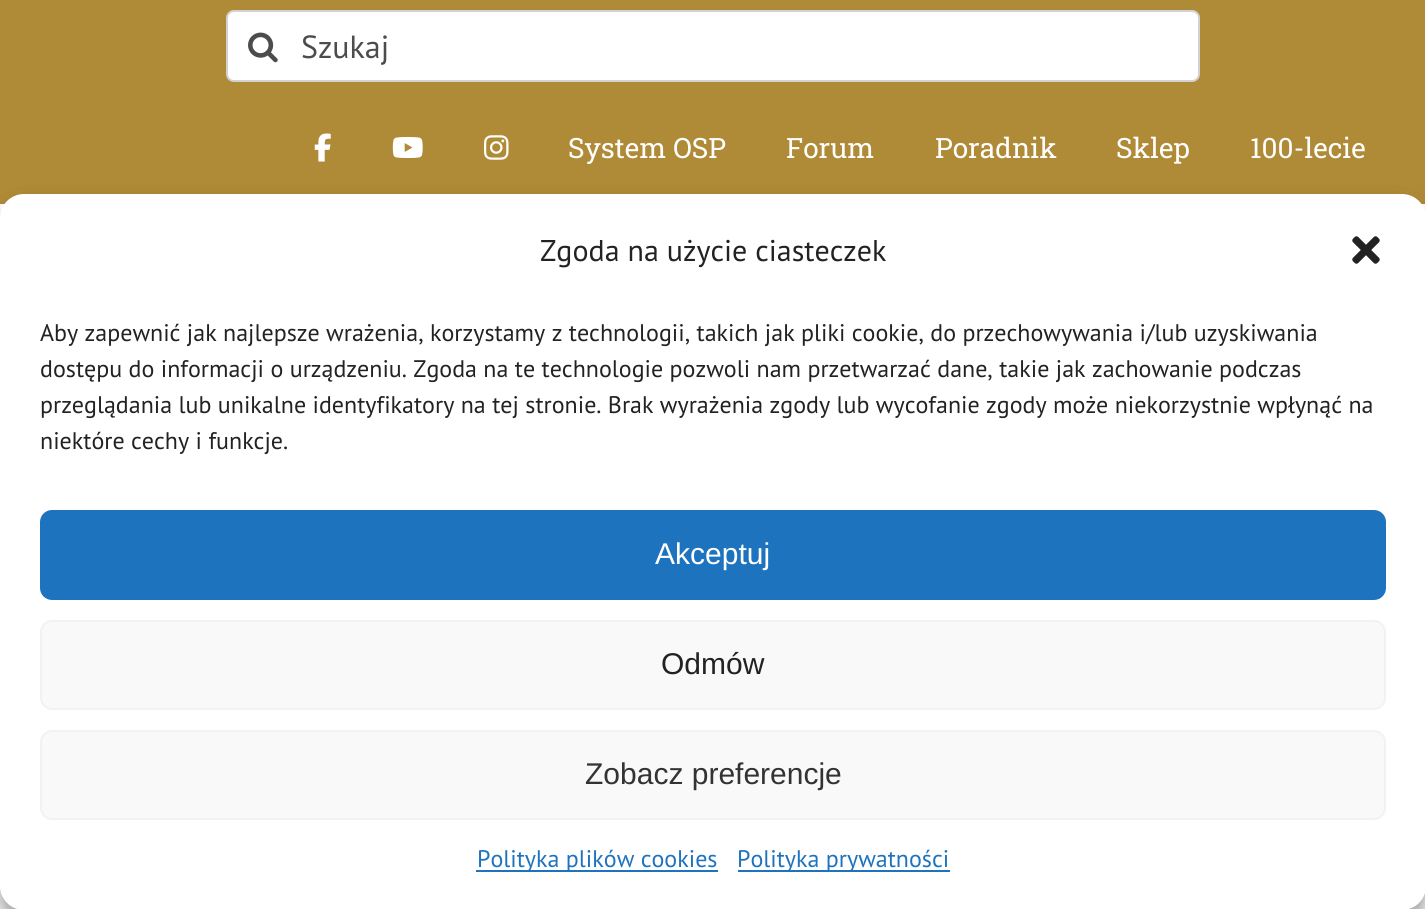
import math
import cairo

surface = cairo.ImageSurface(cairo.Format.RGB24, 1425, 909)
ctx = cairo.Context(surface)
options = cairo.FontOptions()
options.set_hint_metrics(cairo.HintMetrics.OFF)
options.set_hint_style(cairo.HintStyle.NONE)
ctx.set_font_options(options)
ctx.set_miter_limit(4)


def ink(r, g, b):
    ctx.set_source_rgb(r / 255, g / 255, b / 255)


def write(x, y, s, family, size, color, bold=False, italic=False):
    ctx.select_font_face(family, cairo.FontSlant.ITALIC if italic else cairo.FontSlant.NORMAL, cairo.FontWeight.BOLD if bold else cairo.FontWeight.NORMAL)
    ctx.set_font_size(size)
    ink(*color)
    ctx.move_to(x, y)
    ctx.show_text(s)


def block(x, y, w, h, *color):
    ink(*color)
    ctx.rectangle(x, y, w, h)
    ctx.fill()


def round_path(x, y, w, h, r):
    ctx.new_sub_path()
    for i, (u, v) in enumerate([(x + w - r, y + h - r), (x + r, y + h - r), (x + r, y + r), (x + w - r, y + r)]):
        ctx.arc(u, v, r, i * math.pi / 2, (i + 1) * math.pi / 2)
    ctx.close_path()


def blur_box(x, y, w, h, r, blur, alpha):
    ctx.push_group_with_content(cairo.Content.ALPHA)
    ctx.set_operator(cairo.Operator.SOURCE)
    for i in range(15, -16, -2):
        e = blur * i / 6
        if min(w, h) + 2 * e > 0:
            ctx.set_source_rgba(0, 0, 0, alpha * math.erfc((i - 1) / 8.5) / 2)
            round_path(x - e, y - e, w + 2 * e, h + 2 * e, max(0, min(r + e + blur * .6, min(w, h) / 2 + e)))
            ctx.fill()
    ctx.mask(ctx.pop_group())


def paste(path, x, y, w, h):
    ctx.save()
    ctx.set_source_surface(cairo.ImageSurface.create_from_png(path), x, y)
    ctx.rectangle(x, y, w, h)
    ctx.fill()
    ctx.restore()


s1 = dict(family="PT Sans", size=32, color=(76, 76, 76))
s2 = dict(family="Roboto Slab", size=28, color=(255, 255, 255))
s3 = dict(family="PT Sans", size=30, color=(34, 34, 34))
s4 = dict(family="PT Sans", size=24, color=(34, 34, 34))
s5 = dict(family="Liberation Sans", size=30, color=(255, 255, 255))
s6 = dict(family="Liberation Sans", size=30, color=(34, 34, 34))
s7 = dict(family="Liberation Sans", size=30, color=(51, 51, 51))
s8 = dict(family="PT Sans", size=24, color=(30, 115, 190))

ink(255, 255, 255)
ctx.paint()
block(0, 0, 1425, 204, 176, 139, 55)
ink(255, 255, 255)
round_path(227, 11, 972, 70, 7)
ctx.fill_preserve()
ink(210, 210, 210)
ctx.stroke()
paste("pic1.png", 248, 32, 30, 31)
write(301, 58, "Szukaj", **s1)
paste("pic2.png", 314, 133, 17, 29)
paste("pic3.png", 392, 137, 31, 21)
paste("pic4.png", 484, 135, 25, 25)
write(568, 158, "System OSP", **s2)
write(786, 158, "Forum", **s2)
write(935, 158, "Poradnik", **s2)
write(1116, 158, "Sklep", **s2)
write(1250, 158, "100-lecie", **s2)
ink(0, 0, 0)
blur_box(0, 206, 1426, 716, 24, 6, 0.23)
blur_box(0, 214, 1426, 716, 24, 20, 0.19)
ink(255, 255, 255)
round_path(0, 194, 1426, 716, 24)
ctx.fill()
write(540, 261, "Zgoda na użycie ciasteczek", **s3)
paste("pic5.png", 1352, 236, 28, 28)
write(40, 341, "Aby zapewnić jak najlepsze wrażenia, korzystamy z technologii, takich jak pliki cookie, do przechowywania i/lub uzyskiwania", **s4)
write(40, 377, "dostępu do informacji o urządzeniu. Zgoda na te technologie pozwoli nam przetwarzać dane, takie jak zachowanie podczas", **s4)
write(40, 413, "przeglądania lub unikalne identyfikatory na tej stronie. Brak wyrażenia zgody lub wycofanie zgody może niekorzystnie wpłynąć na", **s4)
write(40, 449, "niektóre cechy i funkcje.", **s4)
ink(30, 115, 190)
round_path(41, 511, 1344, 88, 11)
ctx.fill_preserve()
ctx.stroke()
write(655, 564, "Akceptuj", **s5)
ink(249, 249, 249)
round_path(41, 621, 1344, 88, 11)
ctx.fill_preserve()
ink(242, 242, 242)
ctx.stroke()
write(661, 674, "Odmów", **s6)
ink(249, 249, 249)
round_path(41, 731, 1344, 88, 11)
ctx.fill_preserve()
ink(242, 242, 242)
ctx.stroke()
write(585, 784, "Zobacz preferencje", **s7)
block(476, 870, 242, 2, 30, 115, 190)
write(477, 867, "Polityka plików cookies", **s8)
block(738, 870, 212, 2, 30, 115, 190)
write(737, 867, "Polityka prywatności", **s8)
surface.write_to_png("screenshot.png")
